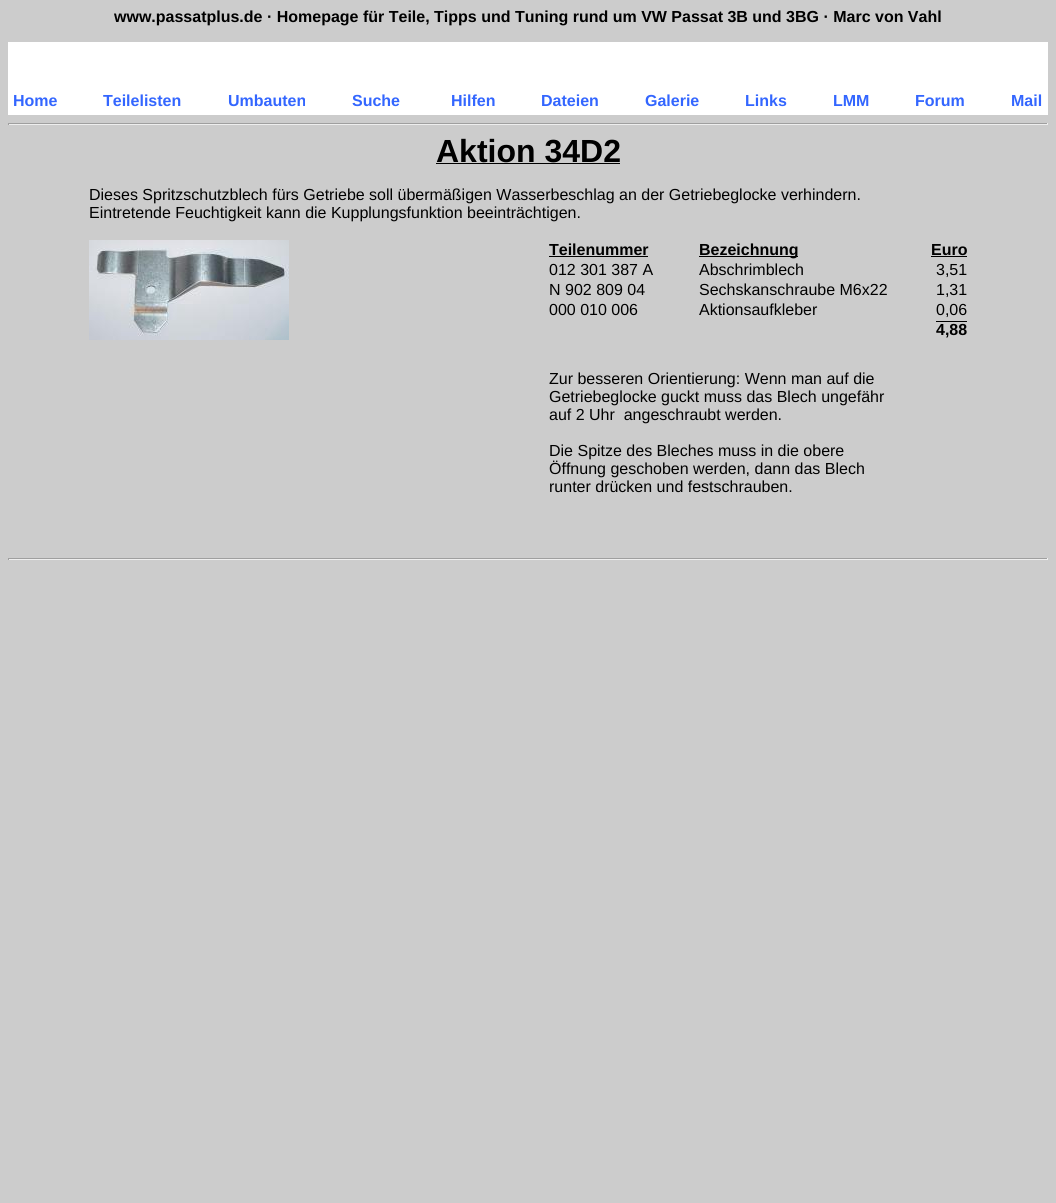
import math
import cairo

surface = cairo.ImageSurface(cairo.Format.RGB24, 1056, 1203)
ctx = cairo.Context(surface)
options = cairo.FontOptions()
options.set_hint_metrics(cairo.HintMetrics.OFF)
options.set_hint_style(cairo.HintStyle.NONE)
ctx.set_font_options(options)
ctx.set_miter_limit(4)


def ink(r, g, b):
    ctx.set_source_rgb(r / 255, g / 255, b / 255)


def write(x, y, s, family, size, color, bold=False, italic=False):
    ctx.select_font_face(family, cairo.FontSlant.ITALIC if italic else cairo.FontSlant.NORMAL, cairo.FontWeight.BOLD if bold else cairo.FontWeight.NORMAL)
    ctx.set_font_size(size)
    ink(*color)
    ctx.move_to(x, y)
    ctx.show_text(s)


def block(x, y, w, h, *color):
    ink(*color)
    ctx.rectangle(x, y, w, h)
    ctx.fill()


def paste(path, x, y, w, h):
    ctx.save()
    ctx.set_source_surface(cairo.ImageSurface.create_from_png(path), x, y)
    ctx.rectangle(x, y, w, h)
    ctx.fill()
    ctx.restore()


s1 = dict(family="Liberation Sans", size=16, color=(0, 0, 0), bold=True)
s2 = dict(family="Liberation Sans", size=16, color=(51, 102, 255), bold=True)
s3 = dict(family="Liberation Sans", size=32, color=(0, 0, 0), bold=True)
s4 = dict(family="Liberation Sans", size=16, color=(0, 0, 0))

ink(204, 204, 204)
ctx.paint()
write(114, 22, "www.passatplus.de · Homepage für Teile, Tipps und Tuning rund um VW Passat 3B und 3BG · Marc von Vahl", **s1)
block(8, 42, 1040, 45, 255, 255, 255)
block(8, 87, 1040, 28, 255, 255, 255)
write(13, 106, "Home", **s2)
write(103, 106, "Teilelisten", **s2)
write(228, 106, "Umbauten", **s2)
write(352, 106, "Suche", **s2)
write(451, 106, "Hilfen", **s2)
write(541, 106, "Dateien", **s2)
write(645, 106, "Galerie", **s2)
write(745, 106, "Links", **s2)
write(833, 106, "LMM", **s2)
write(915, 106, "Forum", **s2)
write(1011, 106, "Mail", **s2)
block(8, 123, 1040, 1, 159, 159, 159)
block(1047, 123, 1, 2, 238, 238, 238)
block(8, 124, 1040, 1, 238, 238, 238)
block(8, 123, 1, 2, 159, 159, 159)
write(436, 162, "Aktion 34D2", **s3)
block(436, 163, 184, 1, 0, 0, 0)
write(89, 200, "Dieses Spritzschutzblech fürs Getriebe soll übermäßigen Wasserbeschlag an der Getriebeglocke verhindern.", **s4)
write(89, 218, "Eintretende Feuchtigkeit kann die Kupplungsfunktion beeinträchtigen.", **s4)
paste("pic1.png", 89, 240, 200, 100)
write(549, 255, "Teilenummer", **s1)
block(549, 256, 99, 1, 0, 0, 0)
block(699, 256, 99, 1, 0, 0, 0)
write(699, 255, "Bezeichnung", **s1)
write(931, 255, "Euro", **s1)
block(931, 256, 36, 1, 0, 0, 0)
write(549, 275, "012 301 387 A", **s4)
write(699, 275, "Abschrimblech", **s4)
write(936, 275, "3,51", **s4)
write(549, 295, "N 902 809 04", **s4)
write(699, 295, "Sechskanschraube M6x22", **s4)
write(936, 295, "1,31", **s4)
write(549, 315, "000 010 006", **s4)
write(699, 315, "Aktionsaufkleber", **s4)
write(936, 315, "0,06", **s4)
write(936, 335, "4,88", **s1)
block(936, 321, 31, 1, 0, 0, 0)
write(549, 384, "Zur besseren Orientierung: Wenn man auf die", **s4)
write(549, 402, "Getriebeglocke guckt muss das Blech ungefähr", **s4)
write(549, 420, "auf 2 Uhr  angeschraubt werden.", **s4)
write(549, 456, "Die Spitze des Bleches muss in die obere", **s4)
write(549, 474, "Öffnung geschoben werden, dann das Blech", **s4)
write(549, 492, "runter drücken und festschrauben.", **s4)
block(8, 558, 1040, 1, 159, 159, 159)
block(1047, 558, 1, 2, 238, 238, 238)
block(8, 559, 1040, 1, 238, 238, 238)
block(8, 558, 1, 2, 159, 159, 159)
surface.write_to_png("screenshot.png")
